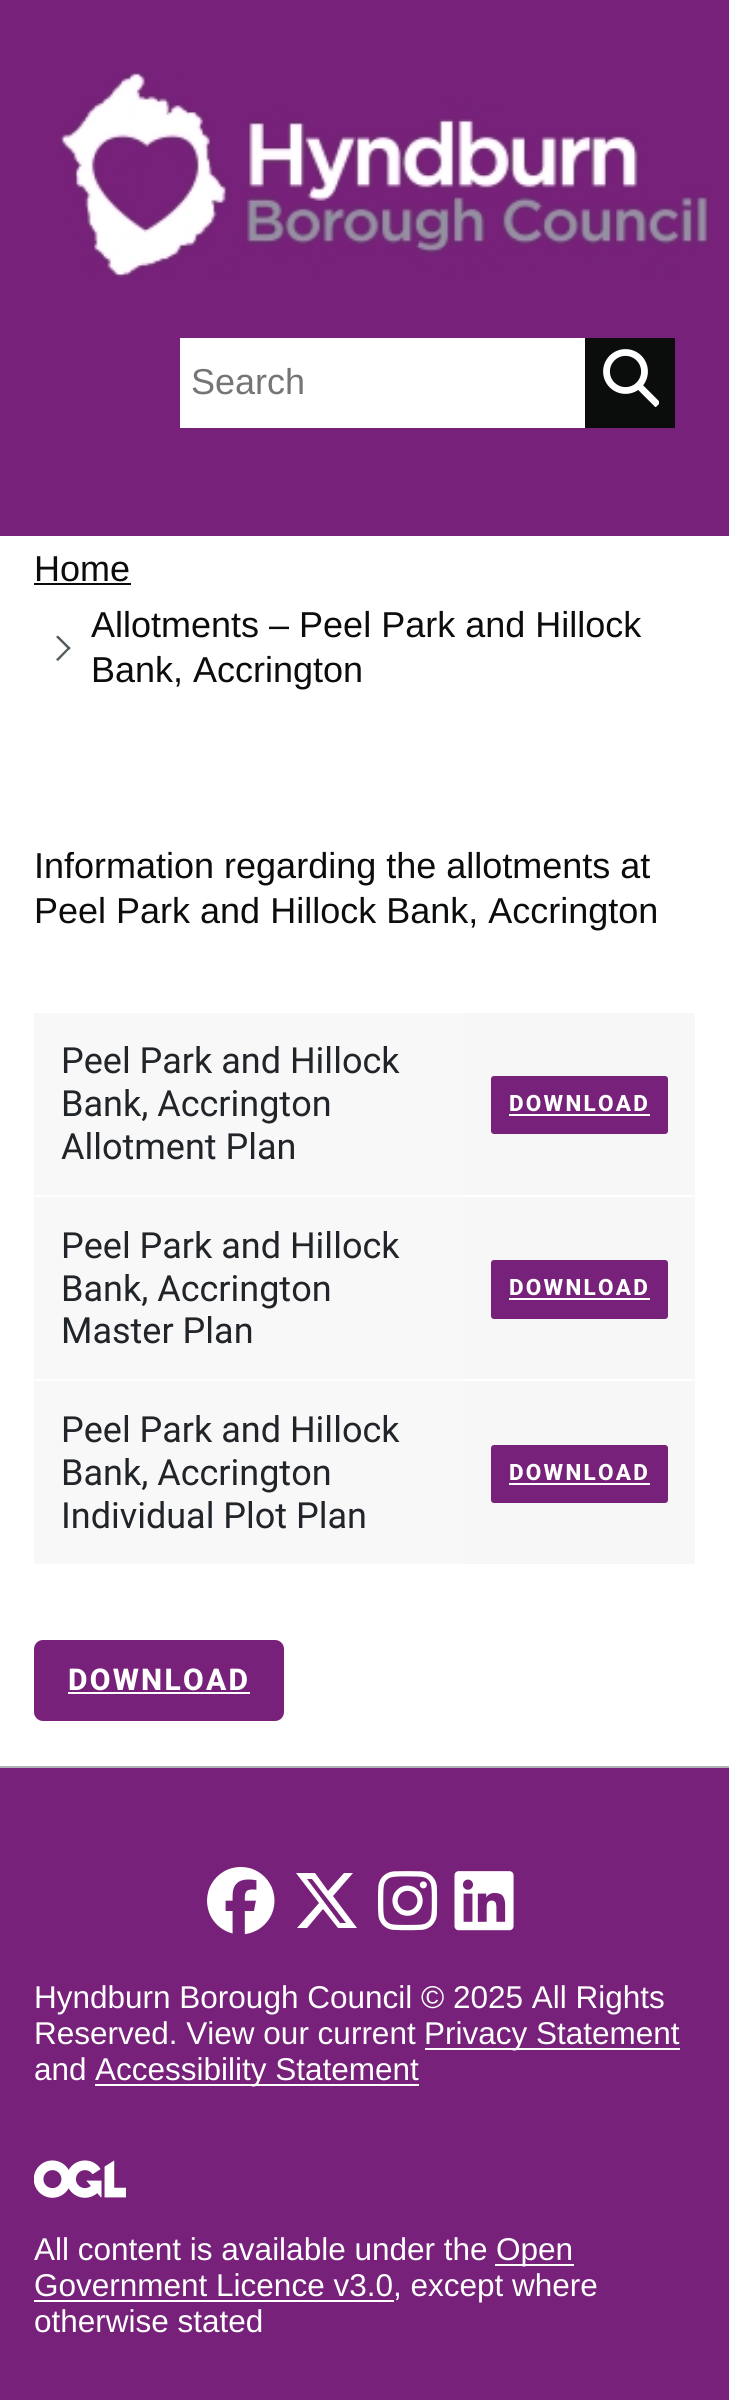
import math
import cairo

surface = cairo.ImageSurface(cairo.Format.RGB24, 729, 2400)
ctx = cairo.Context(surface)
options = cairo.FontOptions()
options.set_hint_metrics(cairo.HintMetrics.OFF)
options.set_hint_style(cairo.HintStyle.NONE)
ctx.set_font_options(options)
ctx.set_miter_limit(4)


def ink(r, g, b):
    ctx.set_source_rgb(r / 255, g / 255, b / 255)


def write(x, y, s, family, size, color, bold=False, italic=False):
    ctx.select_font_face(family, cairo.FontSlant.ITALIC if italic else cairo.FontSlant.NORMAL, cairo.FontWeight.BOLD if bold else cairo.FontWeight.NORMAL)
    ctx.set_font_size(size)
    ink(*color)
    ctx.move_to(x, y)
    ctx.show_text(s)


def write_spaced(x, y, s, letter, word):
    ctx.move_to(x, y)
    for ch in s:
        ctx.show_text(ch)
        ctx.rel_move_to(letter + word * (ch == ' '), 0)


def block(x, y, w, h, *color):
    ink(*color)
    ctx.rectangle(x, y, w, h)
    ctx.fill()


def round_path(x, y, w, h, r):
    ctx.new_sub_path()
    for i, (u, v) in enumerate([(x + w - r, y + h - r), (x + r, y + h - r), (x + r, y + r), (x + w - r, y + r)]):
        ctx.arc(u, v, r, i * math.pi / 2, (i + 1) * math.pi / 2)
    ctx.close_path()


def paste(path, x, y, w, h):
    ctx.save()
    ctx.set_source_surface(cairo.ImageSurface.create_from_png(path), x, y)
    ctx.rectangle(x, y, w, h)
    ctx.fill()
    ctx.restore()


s1 = dict(family="Liberation Sans", size=36, color=(117, 117, 117))
s2 = dict(family="Liberation Sans", size=36, color=(11, 12, 12))
s3 = dict(family="Roboto", size=36, color=(33, 37, 41))
s4 = dict(family="Liberation Sans", size=31.5, color=(255, 255, 255))

ink(255, 255, 255)
ctx.paint()
block(0, 0, 729, 536, 119, 33, 122)
paste("pic1.png", 59, 71, 651, 207)
block(180, 338, 405, 90, 255, 255, 255)
write(191, 394, "Search", **s1)
block(585, 338, 90, 90, 11, 12, 12)
ctx.new_path()
ctx.arc(625.5, 371.5, 19, 0, 2 * math.pi)
ink(255, 255, 255)
ctx.set_line_width(6.8)
ctx.stroke()
ctx.save()
ctx.rectangle(599, 347, 60, 60)
ctx.clip()
ctx.new_path()
ctx.move_to(638.5, 385.5)
ctx.line_to(658, 405)
ctx.stroke()
ctx.restore()
write(34, 581, "Home", **s2)
block(34, 583, 97, 2, 11, 12, 12)
write(91, 637, "Allotments – Peel Park and Hillock", **s2)
ink(80, 90, 95)
ctx.new_path()
ctx.move_to(58, 635.5)
ctx.line_to(70.5, 648)
ctx.line_to(69, 650)
ctx.line_to(56, 637)
ctx.close_path()
ctx.fill()
ctx.new_path()
ctx.move_to(69, 646.5)
ctx.line_to(70.5, 648)
ctx.line_to(58, 661)
ctx.line_to(56, 659.5)
ctx.close_path()
ctx.fill()
write(91, 682, "Bank, Accrington", **s2)
write(34, 878, "Information regarding the allotments at", **s2)
write(34, 923, "Peel Park and Hillock Bank, Accrington", **s2)
block(34, 1013, 430, 182, 248, 248, 248)
write(61, 1073, "Peel Park and Hillock", **s3)
write(61, 1116, "Bank, Accrington", **s3)
write(61, 1159, "Allotment Plan", **s3)
block(464, 1013, 231, 182, 247, 247, 247)
ink(119, 33, 122)
round_path(491, 1076, 177, 58, 3)
ctx.fill()
ctx.select_font_face("Roboto ExtraBold")
ctx.set_font_size(22.5)
ink(255, 255, 255)
write_spaced(509, 1111, "DOWNLOAD", 2.25, 0)
block(509, 1114, 141, 2, 255, 255, 255)
block(34, 1197, 430, 367, 248, 248, 248)
write(61, 1258, "Peel Park and Hillock", **s3)
write(61, 1301, "Bank, Accrington", **s3)
write(61, 1343, "Master Plan", **s3)
block(464, 1197, 231, 367, 247, 247, 247)
ink(119, 33, 122)
round_path(491, 1260, 177, 59, 3)
ctx.fill()
ctx.select_font_face("Roboto ExtraBold")
ctx.set_font_size(22.5)
ink(255, 255, 255)
write_spaced(509, 1295, "DOWNLOAD", 2.25, 0)
block(509, 1298, 141, 2, 255, 255, 255)
write(61, 1442, "Peel Park and Hillock", **s3)
write(61, 1485, "Bank, Accrington", **s3)
write(61, 1528, "Individual Plot Plan", **s3)
block(34, 1379, 664, 2, 255, 255, 255)
ink(119, 33, 122)
round_path(491, 1445, 177, 58, 3)
ctx.fill()
ctx.select_font_face("Roboto ExtraBold")
ctx.set_font_size(22.5)
ink(255, 255, 255)
write_spaced(509, 1480, "DOWNLOAD", 2.25, 0)
block(509, 1483, 141, 2, 255, 255, 255)
ink(119, 33, 122)
round_path(34, 1640, 250, 81, 9)
ctx.fill()
ctx.set_font_size(30)
ink(255, 255, 255)
write_spaced(68, 1690, "DOWNLOAD", 2.25, 0)
block(68, 1692, 182, 2, 255, 255, 255)
block(0, 1768, 729, 632, 119, 33, 122)
block(0, 1766, 729, 2, 177, 180, 182)
paste("pic2.png", 207, 1866, 68, 69)
ink(255, 255, 255)
ctx.new_path()
ctx.move_to(344, 1873)
ctx.line_to(353, 1873)
ctx.line_to(344, 1873)
ctx.line_to(353, 1873)
ctx.line_to(333, 1896)
ctx.line_to(357, 1928)
ctx.line_to(338, 1928)
ctx.line_to(323, 1909)
ctx.line_to(307, 1928)
ctx.line_to(297, 1928)
ctx.line_to(319, 1903)
ctx.line_to(296, 1873)
ctx.line_to(315, 1873)
ctx.line_to(328, 1891)
ctx.close_path()
ctx.move_to(340, 1923)
ctx.line_to(346, 1923)
ctx.line_to(340, 1923)
ctx.line_to(346, 1923)
ctx.line_to(312, 1879)
ctx.line_to(307, 1879)
ctx.close_path()
ctx.fill()
paste("pic3.png", 378, 1871, 60, 60)
paste("pic4.png", 454, 1871, 60, 60)
write(34, 2008, "Hyndburn Borough Council © 2025 All Rights", **s4)
write(34, 2044, "Reserved. View our current", **s4)
block(425, 2048, 255, 2, 255, 255, 255)
write(424, 2044, "Privacy Statement", **s4)
write(34, 2080, "and", **s4)
block(95, 2084, 324, 2, 255, 255, 255)
write(95, 2080, "Accessibility Statement", **s4)
paste("pic5.png", 34, 2160, 92, 38)
write(34, 2260, "All content is available under the", **s4)
block(495, 2264, 79, 2, 255, 255, 255)
write(496, 2260, "Open", **s4)
block(34, 2300, 360, 2, 255, 255, 255)
write(34, 2296, "Government Licence v3.0, except where", **s4)
write(34, 2332, "otherwise stated", **s4)
surface.write_to_png("screenshot.png")
